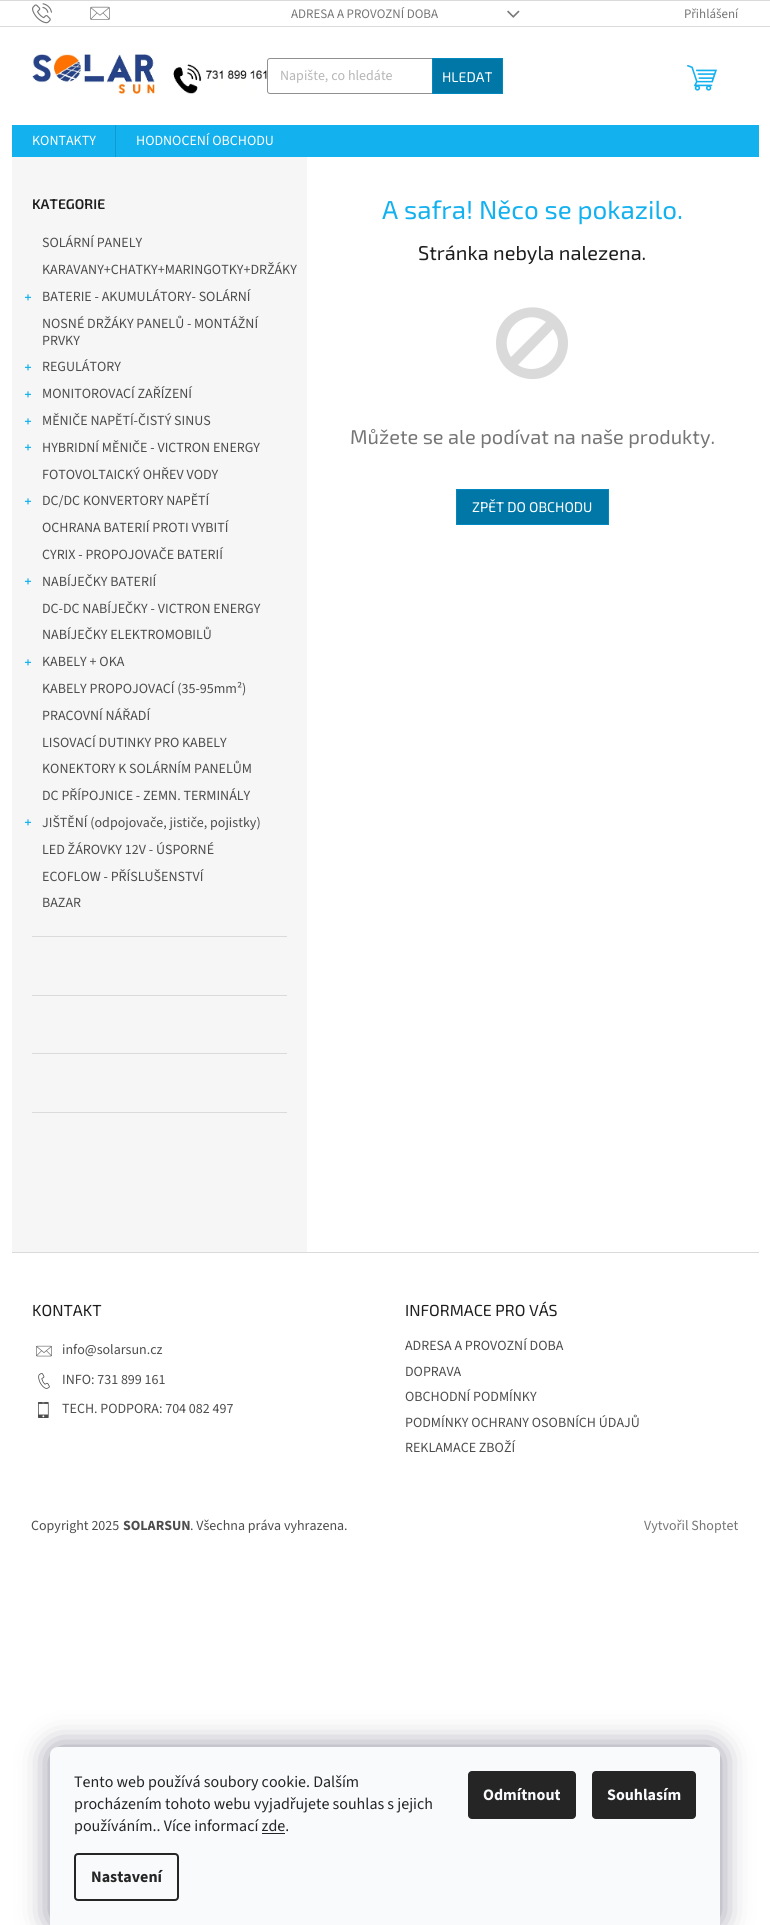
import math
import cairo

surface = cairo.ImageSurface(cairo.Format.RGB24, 770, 1925)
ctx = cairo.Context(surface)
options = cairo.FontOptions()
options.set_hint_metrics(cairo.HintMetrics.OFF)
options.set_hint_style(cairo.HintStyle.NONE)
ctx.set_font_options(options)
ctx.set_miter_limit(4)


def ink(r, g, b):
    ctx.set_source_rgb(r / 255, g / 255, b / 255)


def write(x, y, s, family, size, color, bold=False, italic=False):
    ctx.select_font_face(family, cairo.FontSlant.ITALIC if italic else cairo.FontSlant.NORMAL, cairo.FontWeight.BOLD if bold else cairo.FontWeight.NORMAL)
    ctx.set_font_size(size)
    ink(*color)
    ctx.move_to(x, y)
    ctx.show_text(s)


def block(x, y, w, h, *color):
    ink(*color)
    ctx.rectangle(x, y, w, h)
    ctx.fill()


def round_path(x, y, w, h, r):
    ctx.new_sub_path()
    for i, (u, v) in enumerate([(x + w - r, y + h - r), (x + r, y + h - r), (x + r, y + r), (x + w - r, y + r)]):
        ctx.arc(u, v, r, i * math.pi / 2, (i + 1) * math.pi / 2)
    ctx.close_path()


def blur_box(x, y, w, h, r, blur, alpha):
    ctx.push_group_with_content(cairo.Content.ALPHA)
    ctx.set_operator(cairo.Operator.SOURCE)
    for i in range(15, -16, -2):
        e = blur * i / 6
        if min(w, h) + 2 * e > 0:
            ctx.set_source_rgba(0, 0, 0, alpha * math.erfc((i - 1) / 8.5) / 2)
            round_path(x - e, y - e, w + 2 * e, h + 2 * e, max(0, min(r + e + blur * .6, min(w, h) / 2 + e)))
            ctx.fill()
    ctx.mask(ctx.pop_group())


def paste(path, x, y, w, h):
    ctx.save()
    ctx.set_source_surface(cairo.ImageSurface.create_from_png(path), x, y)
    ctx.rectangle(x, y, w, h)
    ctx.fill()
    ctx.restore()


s1 = dict(family="Source Sans 3", size=13, color=(118, 118, 118))
s2 = dict(family="Source Sans 3", size=14, color=(182, 182, 182))
s3 = dict(family="Exo 2", size=14, color=(255, 255, 255))
s4 = dict(family="Source Sans 3", size=14, color=(255, 255, 255))
s5 = dict(family="Exo 2 SemiBold", size=14, color=(31, 31, 31))
s6 = dict(family="Source Sans 3", size=14, color=(77, 77, 77))
s7 = dict(family="Exo 2", size=26, color=(20, 177, 239))
s8 = dict(family="Exo 2", size=20, color=(31, 31, 31))
s9 = dict(family="Exo 2", size=20, color=(118, 118, 118))
s10 = dict(family="Exo 2", size=16, color=(31, 31, 31))
s11 = dict(family="Source Sans 3", size=14, color=(77, 77, 77), bold=True)
s12 = dict(family="Source Sans 3", size=14, color=(118, 118, 118))
s13 = dict(family="Source Sans 3", size=16, color=(37, 37, 37))
s14 = dict(family="Source Sans 3", size=16, color=(37, 37, 37), bold=True)
s15 = dict(family="Source Sans 3", size=16, color=(248, 250, 251), bold=True)

ink(255, 255, 255)
ctx.paint()
block(0, 0, 770, 1, 218, 218, 218)
block(0, 26, 770, 1, 218, 218, 218)
paste("pic1.png", 32, 3, 20, 21)
paste("pic2.png", 90, 6, 20, 14)
write(291, 18, "ADRESA A PROVOZNÍ DOBA", **s1)
paste("pic3.png", 507, 10, 13, 8)
write(684, 18, "Přihlášení", **s1)
paste("pic4.png", 32, 54, 235, 40)
round_path(267.5, 58.5, 235, 35, 2.5)
ink(145, 145, 145)
ctx.set_line_width(1)
ctx.stroke()
write(280, 80, "Napište, co hledáte", **s2)
ink(0, 119, 166)
ctx.rectangle(432.5, 58.5, 70, 35)
ctx.fill_preserve()
ink(0, 136, 191)
ctx.stroke()
write(442, 82, "HLEDAT", **s3)
paste("pic5.png", 687, 65, 30, 26)
block(12, 125, 747, 32, 20, 177, 239)
write(32, 145, "KONTAKTY", **s4)
block(115, 125, 1, 32, 15, 154, 210)
write(136, 145, "HODNOCENÍ OBCHODU", **s4)
block(12, 157, 295, 1095, 246, 246, 246)
block(32, 936, 255, 1, 218, 218, 218)
write(32, 209, "KATEGORIE", **s5)
write(42, 247, "SOLÁRNÍ PANELY", **s6)
write(42, 274, "KARAVANY+CHATKY+MARINGOTKY+DRŽÁKY", **s6)
paste("pic6.png", 25, 294, 6, 7)
write(42, 301, "BATERIE - AKUMULÁTORY- SOLÁRNÍ", **s6)
write(42, 328, "NOSNÉ DRŽÁKY PANELŮ - MONTÁŽNÍ", **s6)
write(42, 345, "PRVKY", **s6)
paste("pic6.png", 25, 364, 6, 7)
write(42, 371, "REGULÁTORY", **s6)
paste("pic6.png", 25, 391, 6, 7)
write(42, 398, "MONITOROVACÍ ZAŘÍZENÍ", **s6)
paste("pic6.png", 25, 418, 6, 7)
write(42, 425, "MĚNIČE NAPĚTÍ-ČISTÝ SINUS", **s6)
paste("pic6.png", 25, 444, 6, 7)
write(42, 452, "HYBRIDNÍ MĚNIČE - VICTRON ENERGY", **s6)
write(42, 479, "FOTOVOLTAICKÝ OHŘEV VODY", **s6)
paste("pic6.png", 25, 498, 6, 7)
write(42, 505, "DC/DC KONVERTORY NAPĚTÍ", **s6)
write(42, 532, "OCHRANA BATERIÍ PROTI VYBITÍ", **s6)
write(42, 559, "CYRIX - PROPOJOVAČE BATERIÍ", **s6)
paste("pic6.png", 25, 578, 6, 7)
write(42, 586, "NABÍJEČKY BATERIÍ", **s6)
write(42, 613, "DC-DC NABÍJEČKY - VICTRON ENERGY", **s6)
write(42, 639, "NABÍJEČKY ELEKTROMOBILŮ", **s6)
paste("pic6.png", 25, 659, 6, 7)
write(42, 666, "KABELY + OKA", **s6)
write(42, 693, "KABELY PROPOJOVACÍ (35-95mm²)", **s6)
write(42, 720, "PRACOVNÍ NÁŘADÍ", **s6)
write(42, 747, "LISOVACÍ DUTINKY PRO KABELY", **s6)
write(42, 773, "KONEKTORY K SOLÁRNÍM PANELŮM", **s6)
write(42, 800, "DC PŘÍPOJNICE - ZEMN. TERMINÁLY", **s6)
paste("pic6.png", 25, 819, 6, 7)
write(42, 827, "JIŠTĚNÍ (odpojovače, jističe, pojistky)", **s6)
write(42, 854, "LED ŽÁROVKY 12V - ÚSPORNÉ", **s6)
write(42, 881, "ECOFLOW - PŘÍSLUŠENSTVÍ", **s6)
write(42, 907, "BAZAR", **s6)
block(32, 995, 255, 1, 218, 218, 218)
block(32, 1053, 255, 1, 218, 218, 218)
block(32, 1112, 255, 1, 218, 218, 218)
write(382, 219, "A safra! Něco se pokazilo.", **s7)
write(418, 260, "Stránka nebyla nalezena.", **s8)
ink(218, 218, 218)
ctx.new_path()
ctx.move_to(558, 343)
ctx.curve_to(558, 338, 556, 333, 553, 329)
ctx.line_to(518, 365)
ctx.curve_to(535, 376, 558, 363, 558, 343)
ctx.close_path()
ctx.move_to(511, 357)
ctx.line_to(546, 322)
ctx.curve_to(523, 306, 496, 334, 511, 357)
ctx.close_path()
ctx.move_to(568, 343)
ctx.curve_to(568, 350, 566, 357, 562, 363)
ctx.curve_to(542, 393, 496, 378, 496, 343)
ctx.curve_to(496, 308, 542, 294, 562, 323)
ctx.curve_to(566, 329, 568, 336, 568, 343)
ctx.close_path()
ctx.fill()
write(350, 444, "Můžete se ale podívat na naše produkty.", **s9)
ink(0, 119, 166)
ctx.rectangle(456.5, 489.5, 152, 35)
ctx.fill_preserve()
ink(0, 136, 191)
ctx.stroke()
write(472, 512, "ZPĚT DO OBCHODU", **s3)
block(12, 1252, 747, 1, 218, 218, 218)
write(32, 1316, "KONTAKT", **s10)
paste("pic7.png", 36, 1345, 16, 12)
write(62, 1354, "info@solarsun.cz", **s6)
paste("pic8.png", 38, 1373, 12, 16)
write(62, 1384, "INFO: 731 899 161", **s6)
paste("pic9.png", 38, 1402, 11, 16)
write(62, 1413, "TECH. PODPORA: 704 082 497", **s6)
write(405, 1316, "INFORMACE PRO VÁS", **s10)
write(405, 1350, "ADRESA A PROVOZNÍ DOBA", **s6)
write(405, 1376, "DOPRAVA", **s6)
write(405, 1401, "OBCHODNÍ PODMÍNKY", **s6)
write(405, 1427, "PODMÍNKY OCHRANY OSOBNÍCH ÚDAJŮ", **s6)
write(405, 1452, "REKLAMACE ZBOŽÍ", **s6)
write(31, 1530, "Copyright 2025", **s6)
write(123, 1530, "SOLARSUN", **s11)
write(190, 1530, ". Všechna práva vyhrazena.", **s6)
write(644, 1530, "Vytvořil Shoptet", **s12)
ink(27, 25, 57)
blur_box(50, 1747, 670, 178, 8, 15, 0.5)
ink(248, 250, 251)
ctx.new_path()
ctx.move_to(58, 1747)
ctx.line_to(712, 1747)
ctx.curve_to(716.5, 1747, 720, 1750.5, 720, 1755)
ctx.line_to(720, 1925)
ctx.line_to(50, 1925)
ctx.line_to(50, 1755)
ctx.curve_to(50, 1750.5, 53.5, 1747, 58, 1747)
ctx.close_path()
ctx.fill()
write(74, 1787, "Tento web používá soubory cookie. Dalším", **s13)
write(74, 1809, "procházením tohoto webu vyjadřujete souhlas s jejich", **s13)
write(74, 1831, "používáním.. Více informací zde.", **s13)
block(262, 1833, 23, 1, 37, 37, 37)
round_path(75, 1854, 103, 46, 3)
ctx.set_line_width(2)
ctx.stroke()
write(91, 1882, "Nastavení", **s14)
round_path(468, 1771, 108, 48, 4)
ctx.fill()
write(483, 1800, "Odmítnout", **s15)
ink(37, 37, 37)
round_path(592, 1771, 104, 48, 4)
ctx.fill()
write(607, 1800, "Souhlasím", **s15)
surface.write_to_png("screenshot.png")
